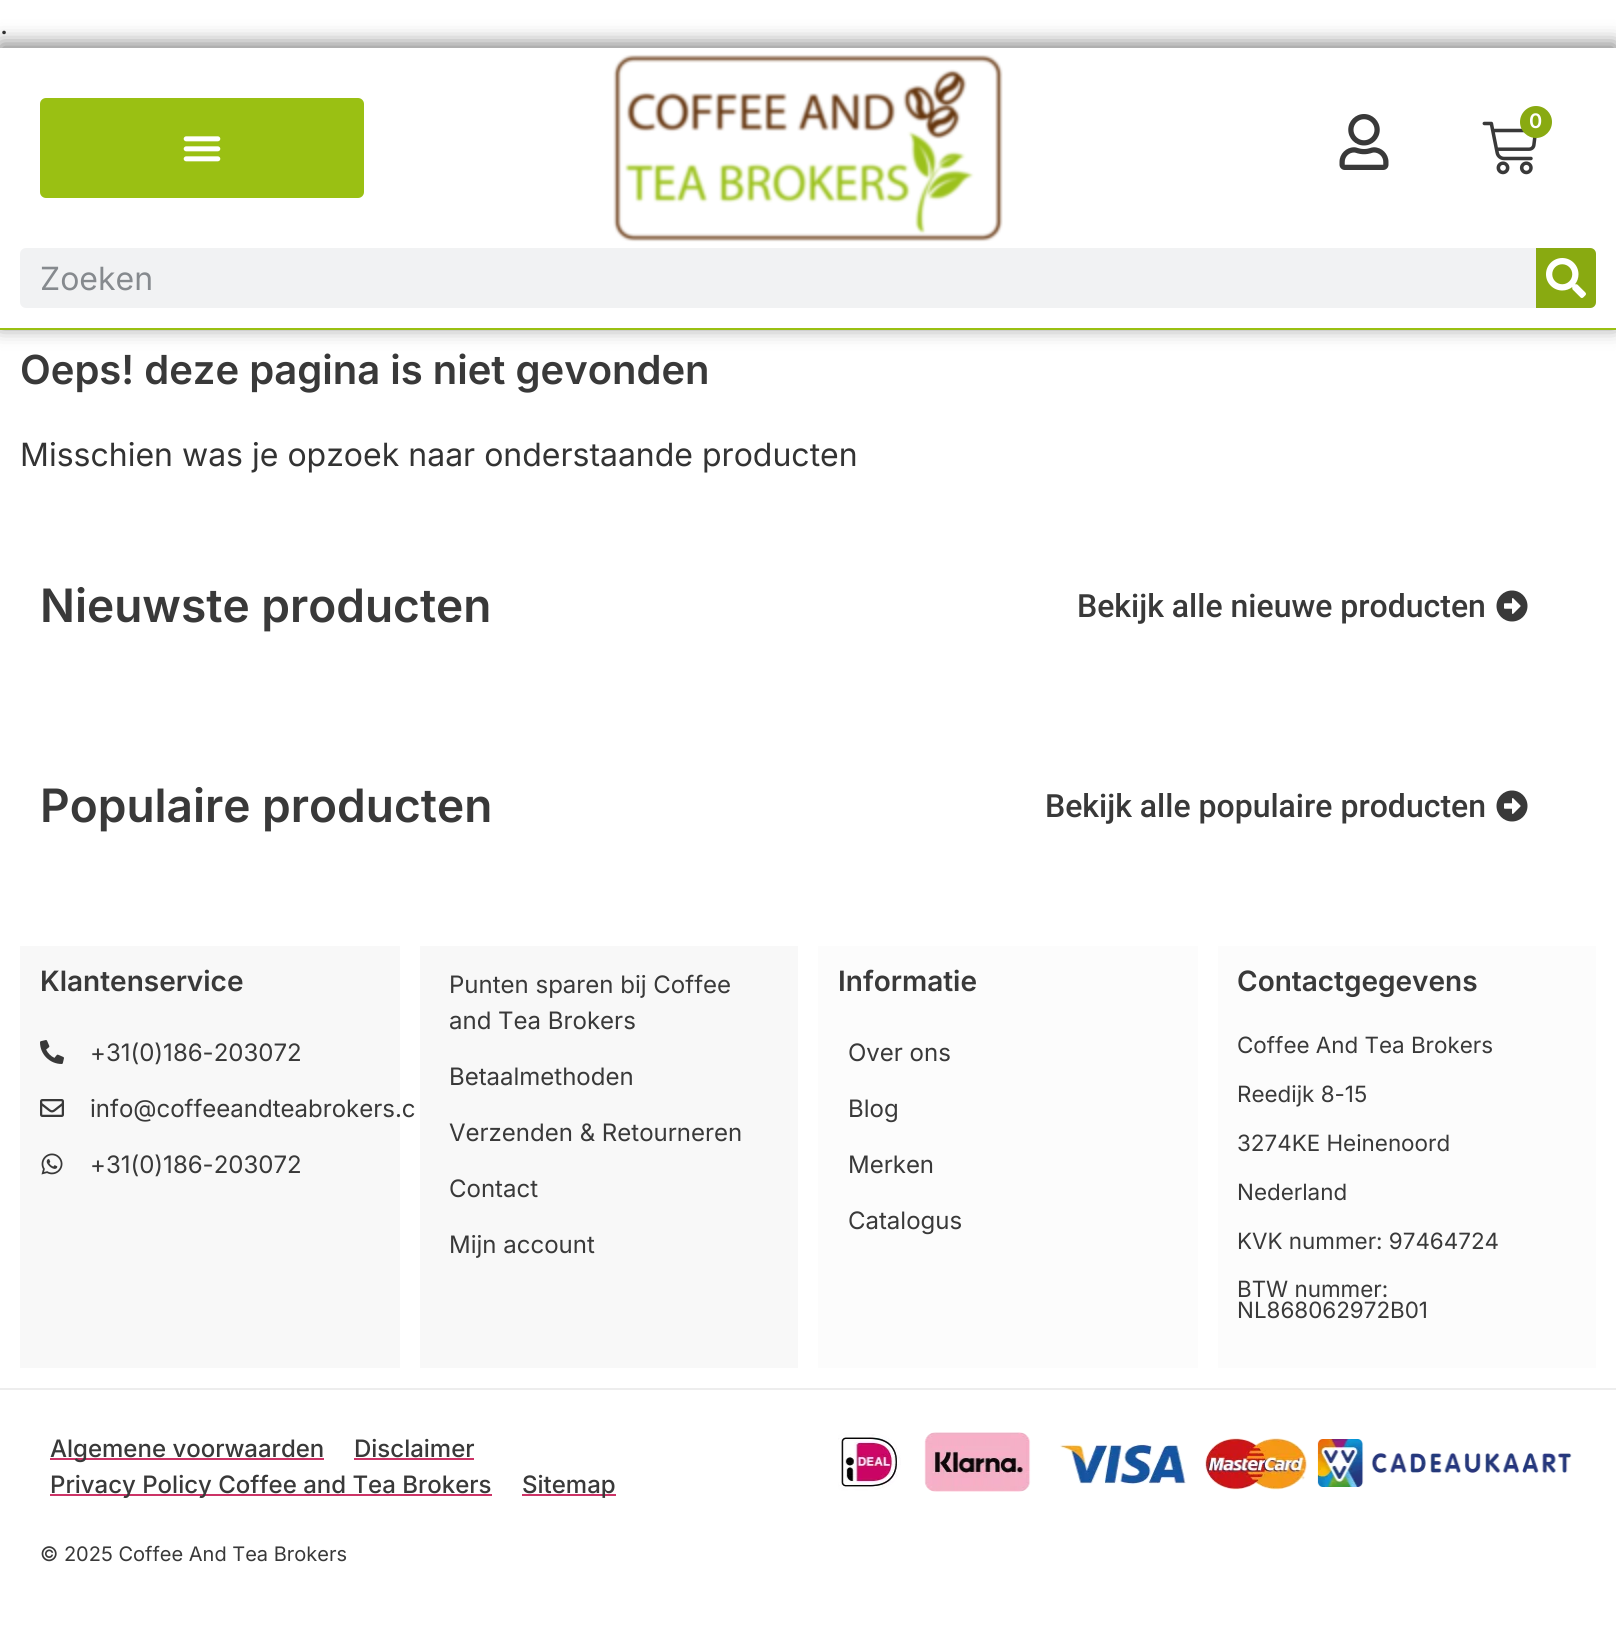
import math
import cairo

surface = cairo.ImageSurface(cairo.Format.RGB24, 1616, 1649)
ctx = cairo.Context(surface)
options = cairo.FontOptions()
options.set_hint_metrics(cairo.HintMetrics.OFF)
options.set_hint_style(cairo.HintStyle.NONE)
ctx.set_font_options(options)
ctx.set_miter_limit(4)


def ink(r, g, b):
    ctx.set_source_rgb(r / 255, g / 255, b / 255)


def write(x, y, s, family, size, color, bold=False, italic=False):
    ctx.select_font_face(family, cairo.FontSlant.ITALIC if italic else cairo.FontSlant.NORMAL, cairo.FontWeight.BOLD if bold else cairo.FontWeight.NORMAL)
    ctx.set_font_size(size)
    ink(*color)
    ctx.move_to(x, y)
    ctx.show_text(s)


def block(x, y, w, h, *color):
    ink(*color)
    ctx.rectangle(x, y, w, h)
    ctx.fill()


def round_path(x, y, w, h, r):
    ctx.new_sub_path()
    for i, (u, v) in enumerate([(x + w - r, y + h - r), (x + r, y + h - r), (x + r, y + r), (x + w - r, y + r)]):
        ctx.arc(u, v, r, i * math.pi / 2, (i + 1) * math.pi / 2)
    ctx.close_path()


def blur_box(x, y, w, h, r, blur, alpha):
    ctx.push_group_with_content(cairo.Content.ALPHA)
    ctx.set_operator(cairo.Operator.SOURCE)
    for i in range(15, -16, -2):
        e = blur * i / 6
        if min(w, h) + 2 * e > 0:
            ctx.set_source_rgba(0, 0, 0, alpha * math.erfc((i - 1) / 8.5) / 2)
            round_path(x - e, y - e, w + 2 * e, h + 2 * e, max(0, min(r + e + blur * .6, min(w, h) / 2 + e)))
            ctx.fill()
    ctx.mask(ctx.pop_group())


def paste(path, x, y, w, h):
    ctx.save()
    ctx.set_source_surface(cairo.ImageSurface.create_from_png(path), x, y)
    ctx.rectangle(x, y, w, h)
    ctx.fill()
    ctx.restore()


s1 = dict(family="Roboto", size=32, color=(51, 51, 51))
s2 = dict(family="Inter SemiBold", size=20, color=(255, 255, 255))
s3 = dict(family="Inter", size=32, color=(134, 138, 142))
s4 = dict(family="Inter SemiBold", size=40, color=(57, 57, 57))
s5 = dict(family="Inter", size=32, color=(51, 51, 51))
s6 = dict(family="Inter SemiBold", size=46, color=(57, 57, 57))
s7 = dict(family="Roboto Medium", size=32, color=(57, 57, 57))
s8 = dict(family="Inter SemiBold", size=28, color=(57, 57, 57))
s9 = dict(family="Inter", size=24, color=(57, 57, 57))
s10 = dict(family="Inter", size=22.4, color=(57, 57, 57))
s11 = dict(family="Inter Medium", size=24, color=(57, 57, 57))
s12 = dict(family="Inter", size=20, color=(57, 57, 57))

ink(255, 255, 255)
ctx.paint()
write(0, 34, ".", **s1)
ctx.save()
ctx.set_fill_rule(cairo.FillRule.EVEN_ODD)
ctx.new_path()
ctx.move_to(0, 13)
ctx.line_to(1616, 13)
ctx.line_to(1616, 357)
ctx.line_to(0, 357)
ctx.close_path()
ctx.move_to(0, 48)
ctx.line_to(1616, 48)
ctx.line_to(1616, 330)
ctx.line_to(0, 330)
ctx.close_path()
ctx.clip()
ink(0, 0, 0)
blur_box(0, 44, 1616, 282, 0, 10, 0.5)
ctx.restore()
block(0, 328, 1616, 2, 154, 192, 19)
round_path(40, 98, 324, 100, 6)
ctx.fill()
paste("pic1.png", 183, 136, 38, 26)
paste("pic2.png", 613, 54, 390, 188)
paste("pic3.png", 1339, 114, 50, 56)
paste("pic4.png", 1482, 121, 55, 54)
ink(137, 170, 17)
ctx.arc(1536, 122, 16, 0, 2 * math.pi)
ctx.fill()
write(1529, 128, "0", **s2)
ink(241, 242, 243)
round_path(20, 248, 1576, 60, 6)
ctx.fill()
write(40, 290, "Zoeken", **s3)
ink(137, 170, 17)
ctx.new_path()
ctx.move_to(1536, 248)
ctx.line_to(1590, 248)
ctx.curve_to(1593.5, 248, 1596, 250.5, 1596, 254)
ctx.line_to(1596, 302)
ctx.curve_to(1596, 305.5, 1593.5, 308, 1590, 308)
ctx.line_to(1536, 308)
ctx.close_path()
ctx.fill()
paste("pic5.png", 1546, 258, 40, 40)
write(20, 384, "Oeps! deze pagina is niet gevonden", **s4)
write(20, 466, "Misschien was je opzoek naar onderstaande producten", **s5)
write(40, 622, "Nieuwste producten", **s6)
write(1077, 617, "Bekijk alle nieuwe producten", **s7)
paste("pic6.png", 1496, 590, 32, 32)
write(40, 822, "Populaire producten", **s6)
write(1045, 817, "Bekijk alle populaire producten", **s7)
paste("pic6.png", 1496, 790, 32, 32)
block(20, 946, 380, 422, 248, 248, 248)
write(40, 991, "Klantenservice", **s8)
paste("pic7.png", 40, 1040, 24, 24)
write(90, 1061, "+31(0)186-203072", **s9)
paste("pic8.png", 40, 1099, 24, 18)
write(90, 1117, "info@coffeeandteabrokers.c", **s9)
paste("pic9.png", 41, 1153, 22, 22)
write(90, 1173, "+31(0)186-203072", **s9)
block(420, 946, 378, 422, 248, 248, 248)
write(449, 993, "Punten sparen bij Coffee", **s9)
write(449, 1029, "and Tea Brokers", **s9)
write(449, 1085, "Betaalmethoden", **s9)
write(449, 1141, "Verzenden & Retourneren", **s9)
write(449, 1197, "Contact", **s9)
write(449, 1253, "Mijn account", **s9)
block(818, 946, 380, 422, 252, 252, 252)
write(838, 991, "Informatie", **s8)
write(848, 1061, "Over ons", **s9)
write(848, 1117, "Blog", **s9)
write(848, 1173, "Merken", **s9)
write(848, 1229, "Catalogus", **s9)
block(1218, 946, 378, 422, 252, 252, 252)
write(1237, 991, "Contactgegevens", **s8)
write(1237, 1053, "Coffee And Tea Brokers", **s10)
write(1237, 1102, "Reedijk 8-15", **s10)
write(1237, 1151, "3274KE Heinenoord", **s10)
write(1237, 1200, "Nederland", **s10)
write(1237, 1249, "KVK nummer: 97464724", **s10)
write(1237, 1297, "BTW nummer:", **s10)
write(1237, 1318, "NL868062972B01", **s10)
block(0, 1388, 1616, 2, 237, 237, 237)
block(50, 1458, 274, 2, 204, 51, 102)
write(50, 1457, "Algemene voorwaarden", **s11)
write(354, 1457, "Disclaimer", **s11)
block(354, 1458, 120, 2, 204, 51, 102)
block(50, 1494, 442, 2, 204, 51, 102)
write(50, 1493, "Privacy Policy Coffee and Tea Brokers", **s11)
block(522, 1494, 94, 2, 204, 51, 102)
write(522, 1493, "Sitemap", **s11)
write(40, 1561, "© 2025 Coffee And Tea Brokers", **s12)
paste("pic10.png", 838, 1432, 734, 60)
surface.write_to_png("screenshot.png")
